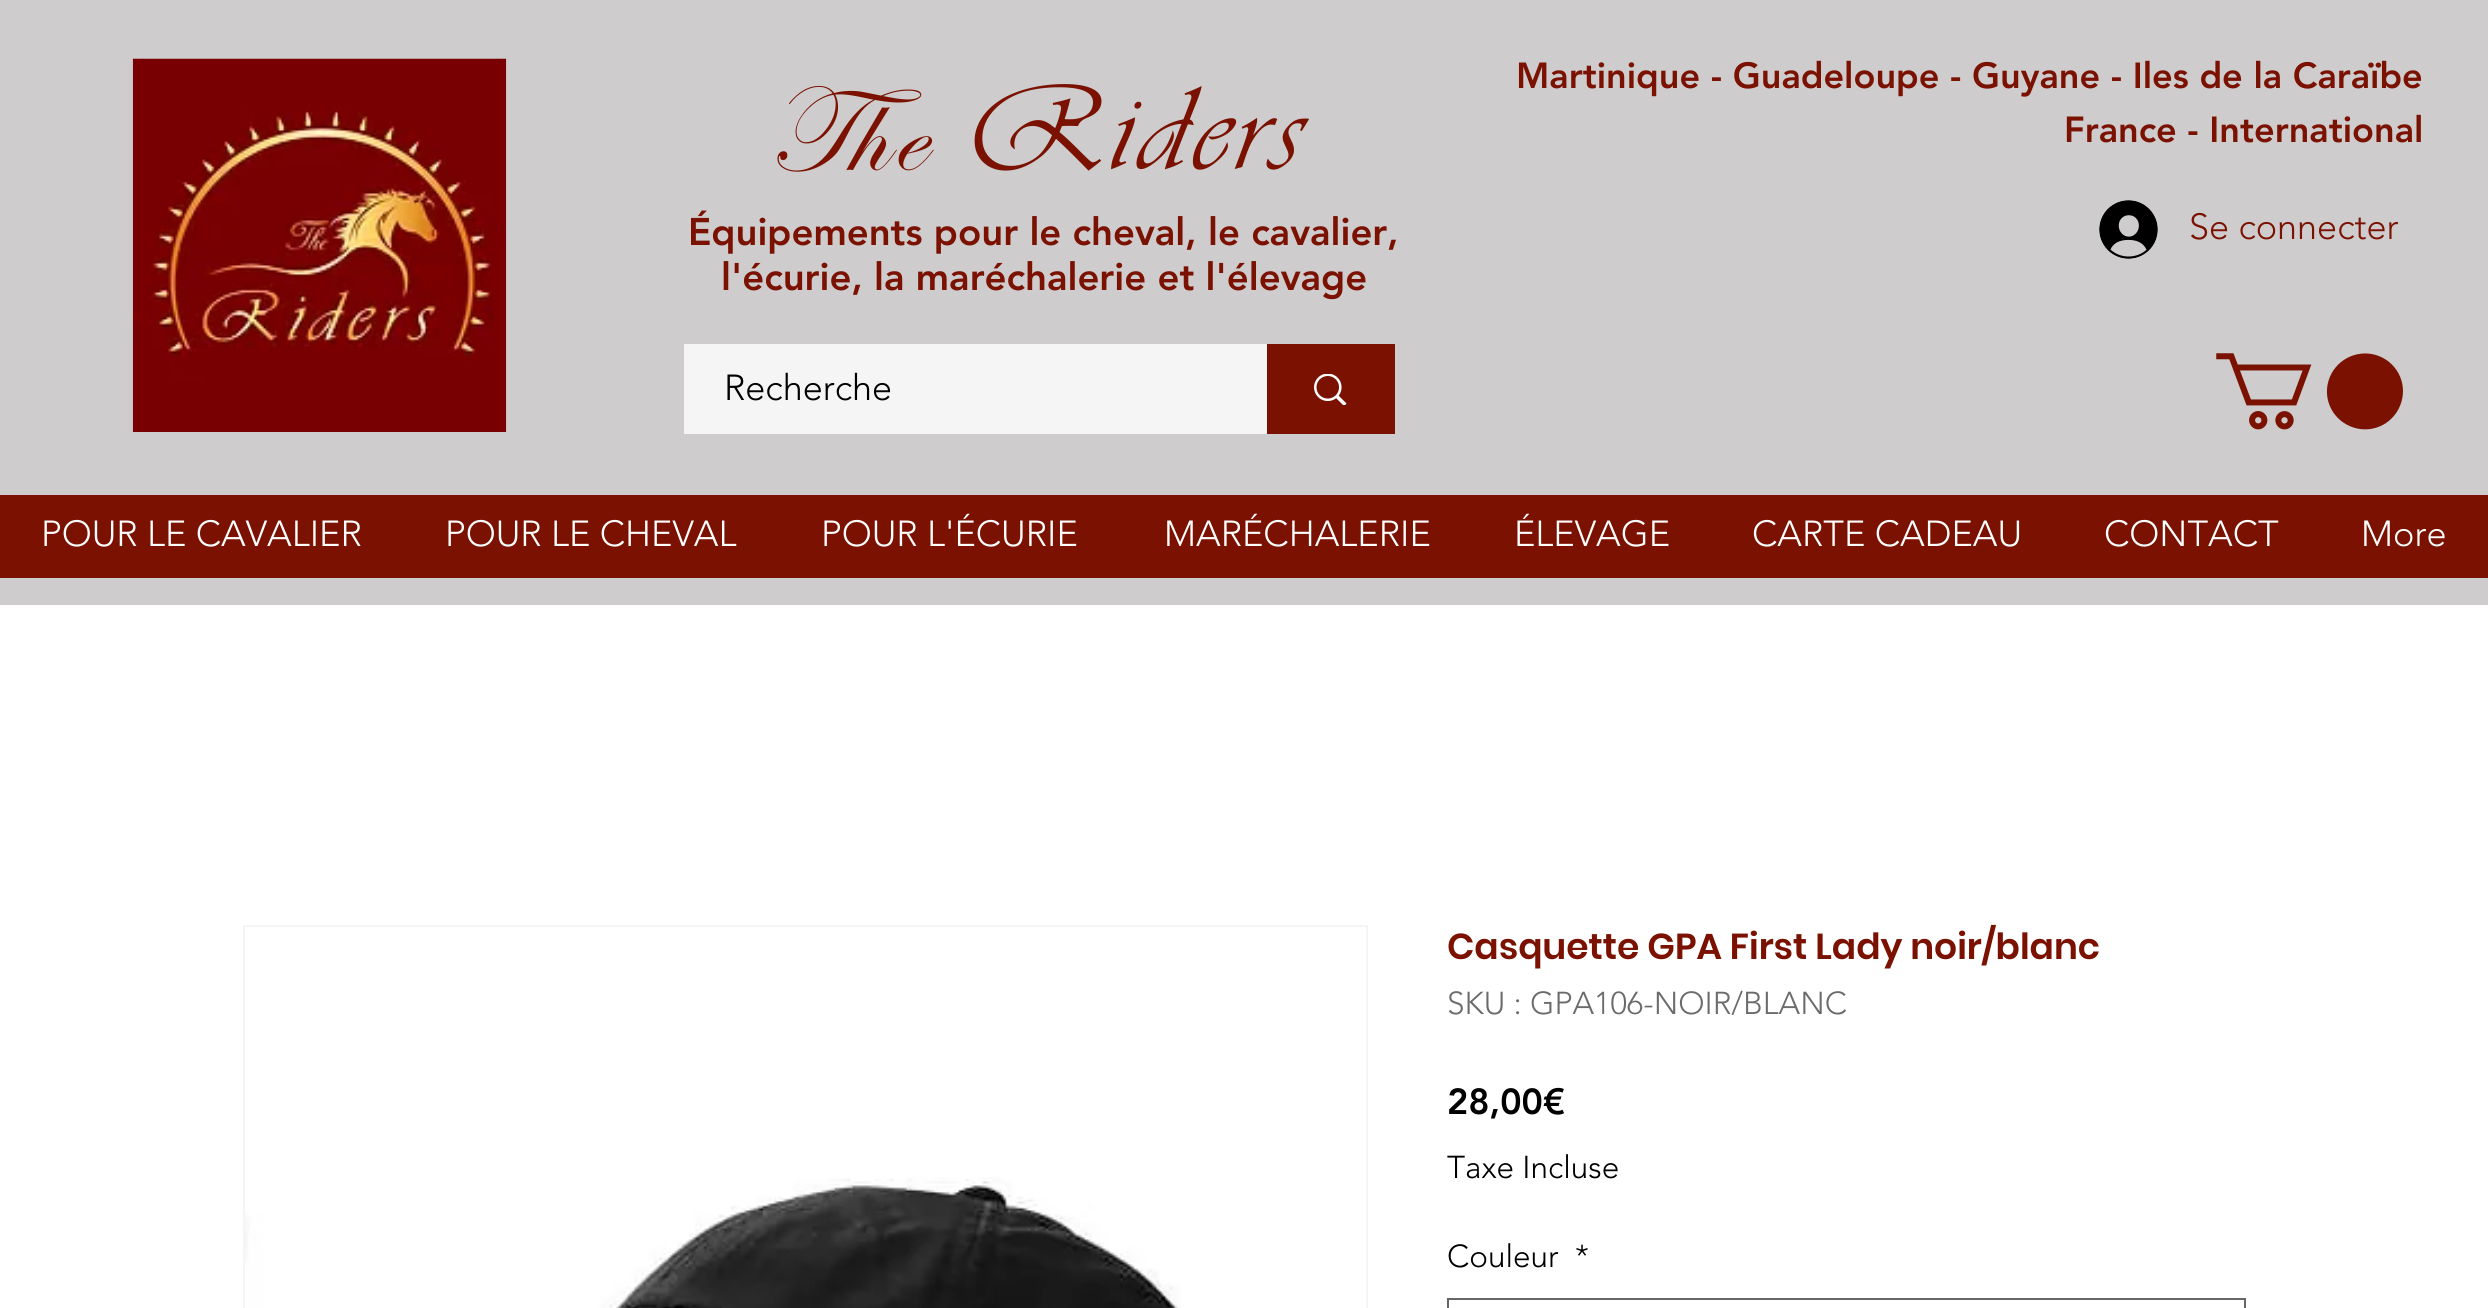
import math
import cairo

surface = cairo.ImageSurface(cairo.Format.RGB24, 2488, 1308)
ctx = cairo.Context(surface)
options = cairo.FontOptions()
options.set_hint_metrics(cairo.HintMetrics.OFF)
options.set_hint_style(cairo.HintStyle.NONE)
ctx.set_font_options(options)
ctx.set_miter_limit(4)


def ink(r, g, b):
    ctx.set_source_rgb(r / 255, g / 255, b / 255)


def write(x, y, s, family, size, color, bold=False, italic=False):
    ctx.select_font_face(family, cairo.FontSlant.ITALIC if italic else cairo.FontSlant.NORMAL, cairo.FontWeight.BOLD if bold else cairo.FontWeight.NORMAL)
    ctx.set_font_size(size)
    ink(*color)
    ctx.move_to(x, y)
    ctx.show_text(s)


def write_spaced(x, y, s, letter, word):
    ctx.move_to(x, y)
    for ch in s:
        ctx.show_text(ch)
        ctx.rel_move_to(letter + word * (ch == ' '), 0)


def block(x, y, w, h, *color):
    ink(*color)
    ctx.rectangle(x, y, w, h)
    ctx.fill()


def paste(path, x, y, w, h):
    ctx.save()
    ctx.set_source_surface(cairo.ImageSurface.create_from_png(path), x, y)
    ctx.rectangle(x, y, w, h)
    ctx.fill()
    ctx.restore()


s1 = dict(family="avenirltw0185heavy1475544 Black", size=38.25, color=(122, 17, 1))
s2 = dict(family="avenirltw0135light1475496 Light", size=36, color=(0, 0, 0))
s3 = dict(family="avenirltw0185heavy1475544 Black", size=36, color=(122, 17, 1))
s4 = dict(family="avenirltw0135light1475496 Light", size=36, color=(122, 17, 1))
s5 = dict(family="avenirltw0135light1475496 Light", size=36, color=(255, 255, 255))
s6 = dict(family="Poppins SemiBold", size=36, color=(122, 17, 1))
s7 = dict(family="avenirltw0135light1475496 Light", size=31.5, color=(107, 107, 106))
s8 = dict(family="avenirltw0185heavy1475544 Black", size=36, color=(0, 0, 0))
s9 = dict(family="avenirltw0135light1475496 Light", size=31.5, color=(0, 0, 0))

ink(255, 255, 255)
ctx.paint()
block(0, 0, 2488, 605, 206, 204, 205)
paste("pic1.png", 132, 58, 375, 374)
ctx.select_font_face("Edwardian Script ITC")
ctx.set_font_size(124)
ink(122, 17, 1)
write_spaced(768, 169, "The", 6.25, 0)
ctx.select_font_face("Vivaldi", cairo.FontSlant.ITALIC)
write_spaced(965, 169, "Riders", 6.25, 0)
write(688, 245, "Équipements pour le cheval, le cavalier,", **s1)
write(721, 290, "l'écurie, la maréchalerie et l'élevage", **s1)
block(684, 344, 583, 90, 245, 245, 245)
write(724, 400, "Recherche", **s2)
block(1267, 344, 128, 90, 122, 17, 1)
paste("pic2.png", 1314, 374, 33, 31)
write(1516, 88, "Martinique - Guadeloupe - Guyane - Iles de la Caraïbe", **s3)
write(2064, 142, "France - International", **s3)
paste("pic3.png", 2099, 200, 59, 59)
write(2189, 239, "Se connecter", **s4)
paste("pic4.png", 2216, 353, 187, 77)
block(0, 495, 2488, 83, 122, 17, 1)
write(41, 546, "POUR LE CAVALIER", **s5)
write(445, 546, "POUR LE CHEVAL", **s5)
write(821, 546, "POUR L'ÉCURIE", **s5)
write(1164, 546, "MARÉCHALERIE", **s5)
write(1514, 546, "ÉLEVAGE", **s5)
write(1752, 546, "CARTE CADEAU", **s5)
write(2104, 546, "CONTACT", **s5)
write(2361, 546, "More", **s5)
ctx.rectangle(244, 926, 1123, 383)
ink(245, 245, 245)
ctx.stroke()
paste("pic5.png", 245, 1177, 936, 131)
write(1447, 959, "Casquette GPA First Lady noir/blanc", **s6)
write(1447, 1014, "SKU : GPA106-NOIR/BLANC", **s7)
write(1447, 1114, "28,00€", **s8)
write(1447, 1178, "Taxe Incluse", **s9)
write(1447, 1267, "Couleur", **s9)
write(1575, 1267, "*", **s9)
ctx.rectangle(1448, 1299, 797, 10)
ink(102, 102, 102)
ctx.stroke()
surface.write_to_png("screenshot.png")
